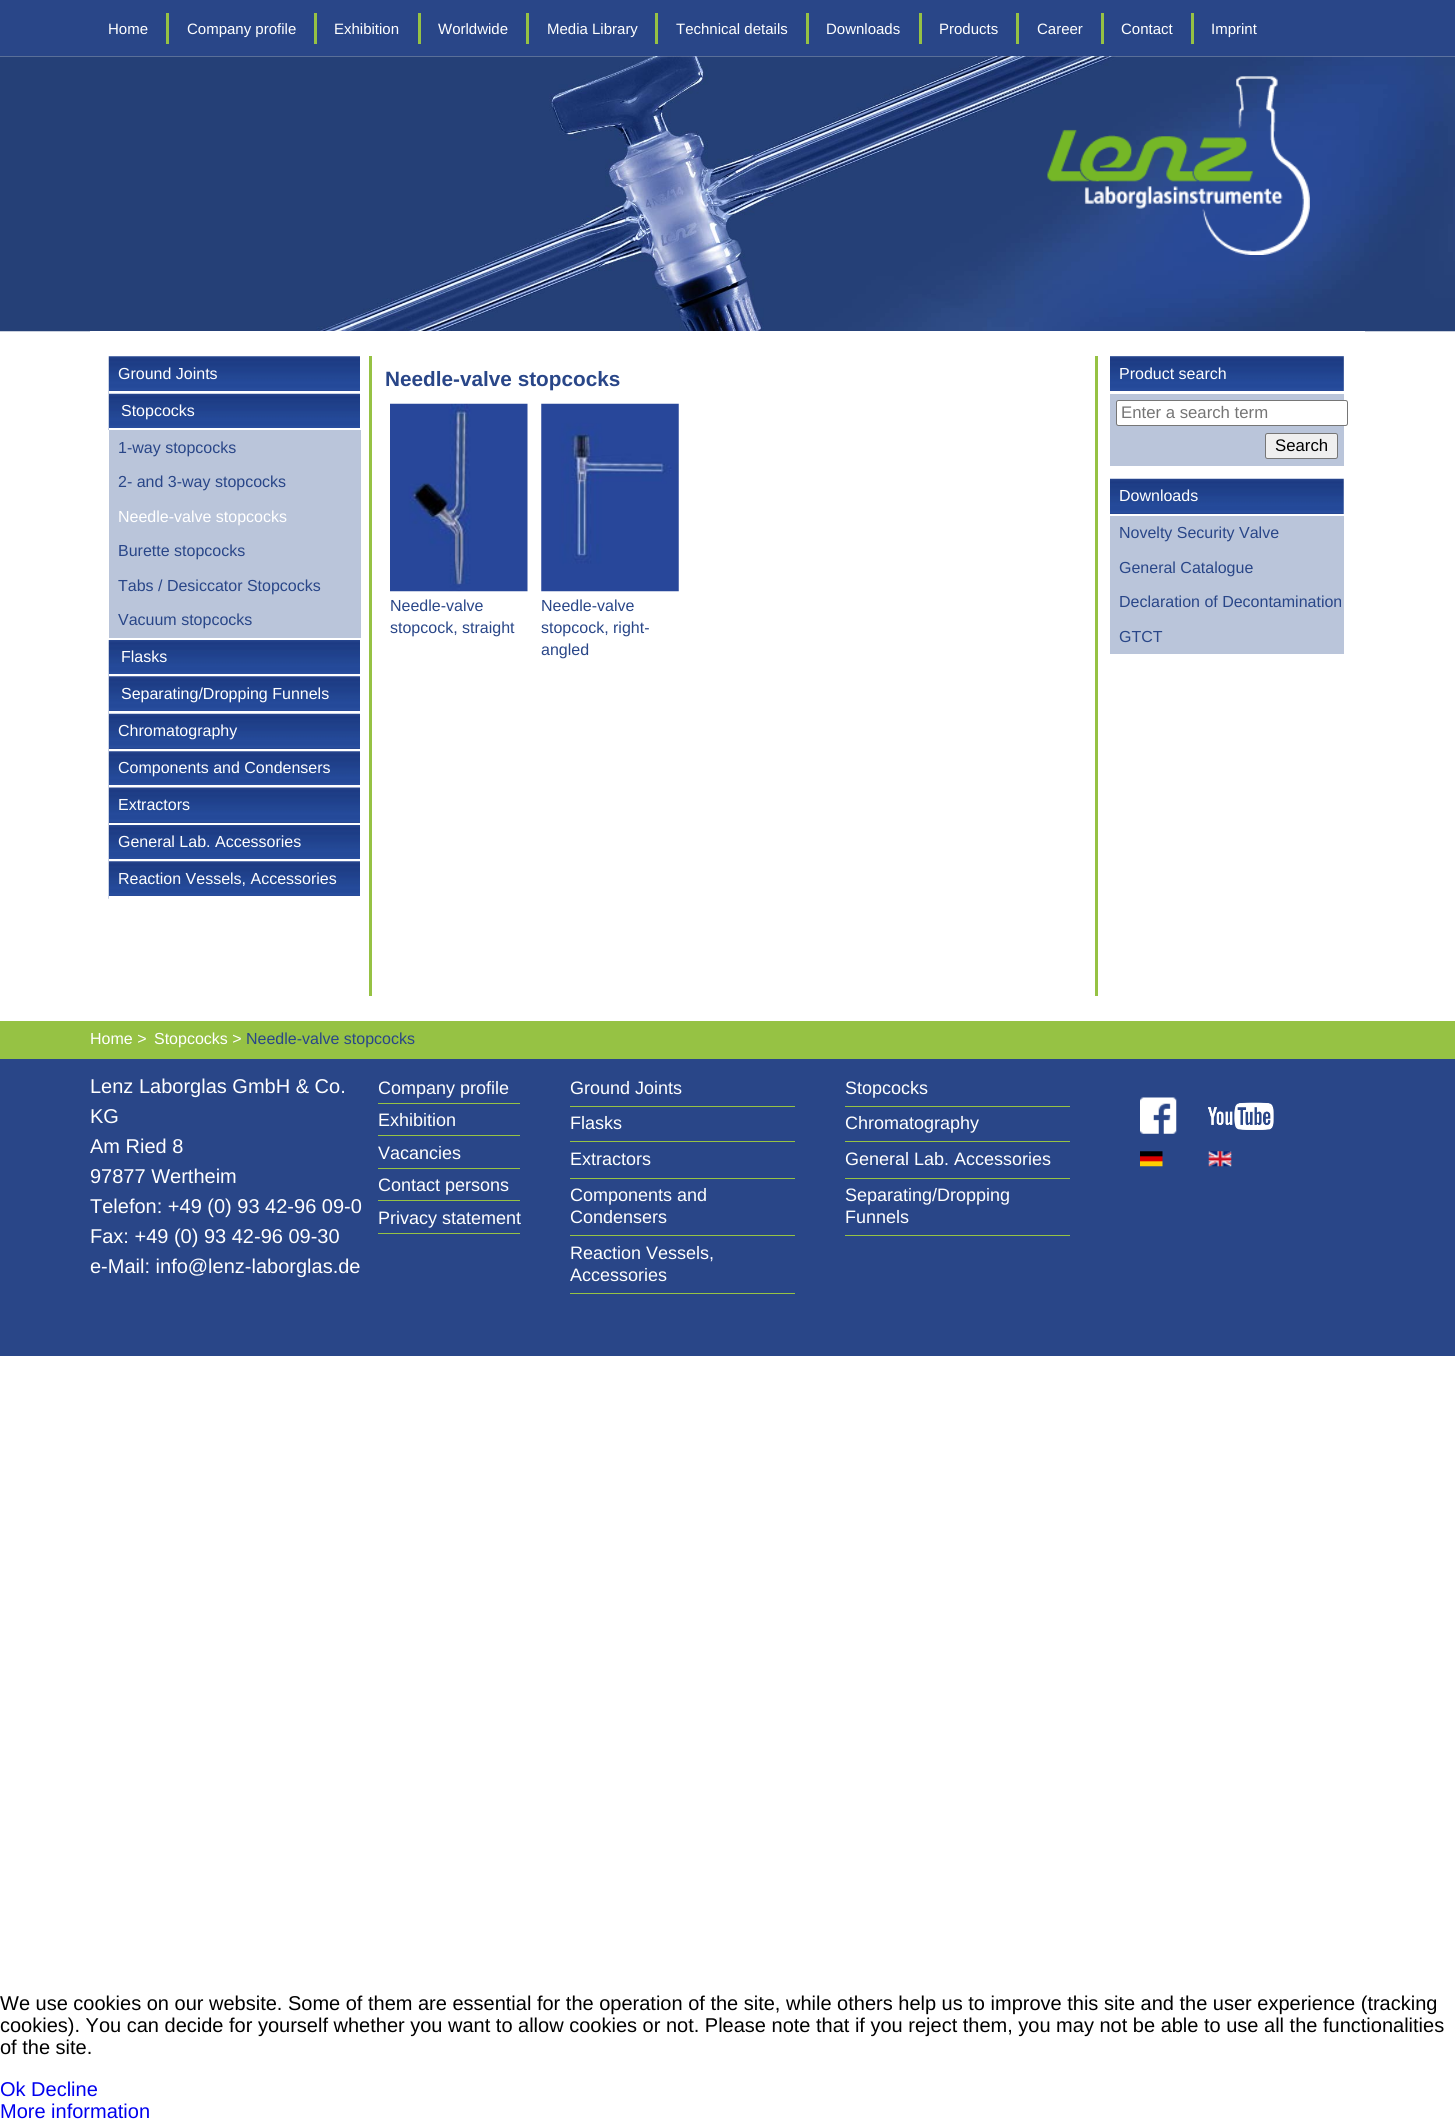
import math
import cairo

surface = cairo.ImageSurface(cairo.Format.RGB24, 1455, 2122)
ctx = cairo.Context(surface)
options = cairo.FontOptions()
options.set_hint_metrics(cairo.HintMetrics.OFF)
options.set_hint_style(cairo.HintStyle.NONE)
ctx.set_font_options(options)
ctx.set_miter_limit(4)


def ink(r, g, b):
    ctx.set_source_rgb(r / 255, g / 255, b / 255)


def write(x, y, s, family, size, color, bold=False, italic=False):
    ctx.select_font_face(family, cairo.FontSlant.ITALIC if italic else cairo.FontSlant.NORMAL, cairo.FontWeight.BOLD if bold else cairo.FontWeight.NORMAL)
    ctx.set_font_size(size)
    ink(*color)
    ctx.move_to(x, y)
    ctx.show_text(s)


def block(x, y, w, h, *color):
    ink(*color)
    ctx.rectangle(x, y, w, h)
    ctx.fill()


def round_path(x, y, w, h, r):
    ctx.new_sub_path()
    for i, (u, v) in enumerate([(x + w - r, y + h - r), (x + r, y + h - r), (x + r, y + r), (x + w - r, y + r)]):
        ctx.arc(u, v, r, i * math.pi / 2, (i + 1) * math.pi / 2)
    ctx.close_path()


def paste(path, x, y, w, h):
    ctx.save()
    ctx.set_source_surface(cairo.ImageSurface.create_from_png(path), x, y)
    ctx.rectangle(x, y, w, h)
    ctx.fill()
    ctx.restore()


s1 = dict(family="Liberation Sans", size=15, color=(255, 255, 255))
s2 = dict(family="Liberation Sans", size=16, color=(255, 255, 255))
s3 = dict(family="Liberation Sans", size=16, color=(41, 70, 136))
s4 = dict(family="Liberation Sans", size=20.75, color=(41, 70, 136), bold=True)
s5 = dict(family="Liberation Sans", size=16.75, color=(117, 117, 117))
s6 = dict(family="Liberation Sans", size=16.75, color=(0, 0, 0))
s7 = dict(family="Liberation Sans", size=20, color=(255, 255, 255))
s8 = dict(family="Liberation Sans", size=18, color=(255, 255, 255))
s9 = dict(family="Liberation Sans", size=20, color=(0, 0, 0))
s10 = dict(family="Liberation Sans", size=20, color=(0, 0, 238))

ink(255, 255, 255)
ctx.paint()
block(0, 0, 1455, 56, 41, 70, 136)
block(166, 13, 3, 31, 150, 194, 68)
write(108, 34, "Home", **s1)
block(314, 13, 3, 31, 150, 194, 68)
write(187, 34, "Company profile", **s1)
block(418, 13, 3, 31, 150, 194, 68)
write(334, 34, "Exhibition", **s1)
block(526, 13, 3, 31, 150, 194, 68)
write(438, 34, "Worldwide", **s1)
block(655, 13, 3, 31, 150, 194, 68)
write(547, 34, "Media Library", **s1)
block(806, 13, 3, 31, 150, 194, 68)
write(676, 34, "Technical details", **s1)
block(919, 13, 3, 31, 150, 194, 68)
write(826, 34, "Downloads", **s1)
block(1016, 13, 3, 31, 150, 194, 68)
write(939, 34, "Products", **s1)
block(1101, 13, 3, 31, 150, 194, 68)
write(1037, 34, "Career", **s1)
block(1191, 13, 3, 31, 150, 194, 68)
write(1121, 34, "Contact", **s1)
write(1211, 34, "Imprint", **s1)
paste("pic1.png", 0, 56, 1455, 276)
paste("pic2.png", 1047, 76, 263, 179)
block(90, 331, 1275, 1, 255, 255, 255)
paste("pic3.png", 108, 356, 252, 38)
block(109, 391, 251, 3, 255, 255, 255)
write(118, 379, "Ground Joints", **s2)
paste("pic4.png", 108, 393, 252, 37)
block(109, 428, 251, 2, 255, 255, 255)
write(121, 416, "Stopcocks", **s2)
block(109, 430, 252, 208, 186, 197, 218)
write(118, 453, "1-way stopcocks", **s3)
write(118, 487, "2- and 3-way stopcocks", **s3)
write(118, 522, "Needle-valve stopcocks", **s2)
write(118, 556, "Burette stopcocks", **s3)
write(118, 591, "Tabs / Desiccator Stopcocks", **s3)
write(118, 625, "Vacuum stopcocks", **s3)
paste("pic5.png", 108, 640, 252, 37)
block(109, 674, 251, 3, 255, 255, 255)
write(121, 662, "Flasks", **s2)
paste("pic6.png", 108, 676, 252, 38)
block(109, 711, 251, 3, 255, 255, 255)
write(121, 699, "Separating/Dropping Funnels", **s2)
paste("pic7.png", 108, 713, 252, 39)
block(109, 749, 251, 3, 255, 255, 255)
write(118, 736, "Chromatography", **s2)
paste("pic8.png", 108, 751, 252, 37)
block(109, 785, 251, 3, 255, 255, 255)
write(118, 773, "Components and Condensers", **s2)
paste("pic9.png", 108, 787, 252, 38)
block(109, 823, 251, 2, 255, 255, 255)
write(118, 810, "Extractors", **s2)
paste("pic5.png", 108, 825, 252, 37)
block(109, 859, 251, 3, 255, 255, 255)
write(118, 847, "General Lab. Accessories", **s2)
paste("pic6.png", 108, 861, 252, 38)
block(109, 896, 251, 3, 255, 255, 255)
write(118, 884, "Reaction Vessels, Accessories", **s2)
block(1095, 356, 3, 640, 150, 194, 68)
block(369, 356, 3, 640, 150, 194, 68)
write(385, 386, "Needle-valve stopcocks", **s4)
paste("pic10.png", 390, 403, 138, 189)
write(390, 611, "Needle-valve", **s3)
write(390, 633, "stopcock, straight", **s3)
paste("pic11.png", 541, 403, 138, 189)
write(541, 611, "Needle-valve", **s3)
write(541, 633, "stopcock, right-", **s3)
write(541, 655, "angled", **s3)
block(1110, 356, 234, 110, 186, 197, 218)
paste("pic12.png", 1110, 356, 234, 35)
block(1110, 391, 234, 3, 255, 255, 255)
write(1119, 379, "Product search", **s2)
round_path(1116.5, 400.5, 231, 25, 2)
ctx.fill_preserve()
ink(118, 118, 118)
ctx.set_line_width(1)
ctx.stroke()
write(1121, 418, "Enter a search term", **s5)
ink(239, 239, 239)
round_path(1265.5, 433.5, 72, 25, 2)
ctx.fill_preserve()
ink(118, 118, 118)
ctx.stroke()
write(1275, 451, "Search", **s6)
paste("pic13.png", 1110, 478, 234, 36)
write(1119, 501, "Downloads", **s2)
block(1110, 516, 234, 138, 186, 197, 218)
write(1119, 538, "Novelty Security Valve", **s3)
write(1119, 573, "General Catalogue", **s3)
write(1119, 607, "Declaration of Decontamination", **s3)
write(1119, 642, "GTCT", **s3)
block(0, 1021, 1455, 38, 150, 194, 68)
write(90, 1044, "Home >", **s2)
write(154, 1044, "Stopcocks >", **s2)
write(246, 1044, "Needle-valve stopcocks", **s3)
block(0, 1059, 1455, 297, 41, 70, 136)
write(90, 1093, "Lenz Laborglas GmbH & Co.", **s7)
write(90, 1123, "KG", **s7)
write(90, 1153, "Am Ried 8", **s7)
write(90, 1183, "97877 Wertheim", **s7)
write(90, 1213, "Telefon: +49 (0) 93 42-96 09-0", **s7)
write(90, 1243, "Fax: +49 (0) 93 42-96 09-30", **s7)
write(90, 1273, "e-Mail: info@lenz-laborglas.de", **s7)
block(378, 1103, 142, 1, 150, 194, 68)
write(378, 1094, "Company profile", **s8)
block(378, 1135, 142, 1, 150, 194, 68)
write(378, 1126, "Exhibition", **s8)
block(378, 1168, 142, 1, 150, 194, 68)
write(378, 1159, "Vacancies", **s8)
block(378, 1200, 142, 1, 150, 194, 68)
write(378, 1191, "Contact persons", **s8)
block(378, 1233, 142, 1, 150, 194, 68)
write(378, 1224, "Privacy statement", **s8)
block(570, 1106, 225, 1, 150, 194, 68)
write(570, 1094, "Ground Joints", **s8)
block(845, 1106, 225, 1, 150, 194, 68)
write(845, 1094, "Stopcocks", **s8)
block(570, 1141, 225, 1, 150, 194, 68)
write(570, 1129, "Flasks", **s8)
block(845, 1141, 225, 1, 150, 194, 68)
write(845, 1129, "Chromatography", **s8)
block(570, 1178, 225, 1, 150, 194, 68)
write(570, 1165, "Extractors", **s8)
block(845, 1178, 225, 1, 150, 194, 68)
write(845, 1165, "General Lab. Accessories", **s8)
block(570, 1235, 225, 1, 150, 194, 68)
write(570, 1201, "Components and", **s8)
write(570, 1223, "Condensers", **s8)
block(845, 1235, 225, 1, 150, 194, 68)
write(845, 1201, "Separating/Dropping", **s8)
write(845, 1223, "Funnels", **s8)
block(570, 1293, 225, 1, 150, 194, 68)
write(570, 1259, "Reaction Vessels,", **s8)
write(570, 1281, "Accessories", **s8)
paste("pic14.png", 1140, 1097, 37, 37)
paste("pic15.png", 1208, 1102, 66, 28)
paste("pic16.png", 1140, 1151, 23, 16)
paste("pic17.png", 1208, 1151, 24, 16)
write(0, 2010, "We use cookies on our website. Some of them are essential for the operation of the site, while others help us to improve this site and the user experience (tracking", **s9)
write(0, 2032, "cookies). You can decide for yourself whether you want to allow cookies or not. Please note that if you reject them, you may not be able to use all the functionalities", **s9)
write(0, 2054, "of the site.", **s9)
write(0, 2096, "Ok Decline", **s10)
write(0, 2118, "More information", **s10)
surface.write_to_png("screenshot.png")
